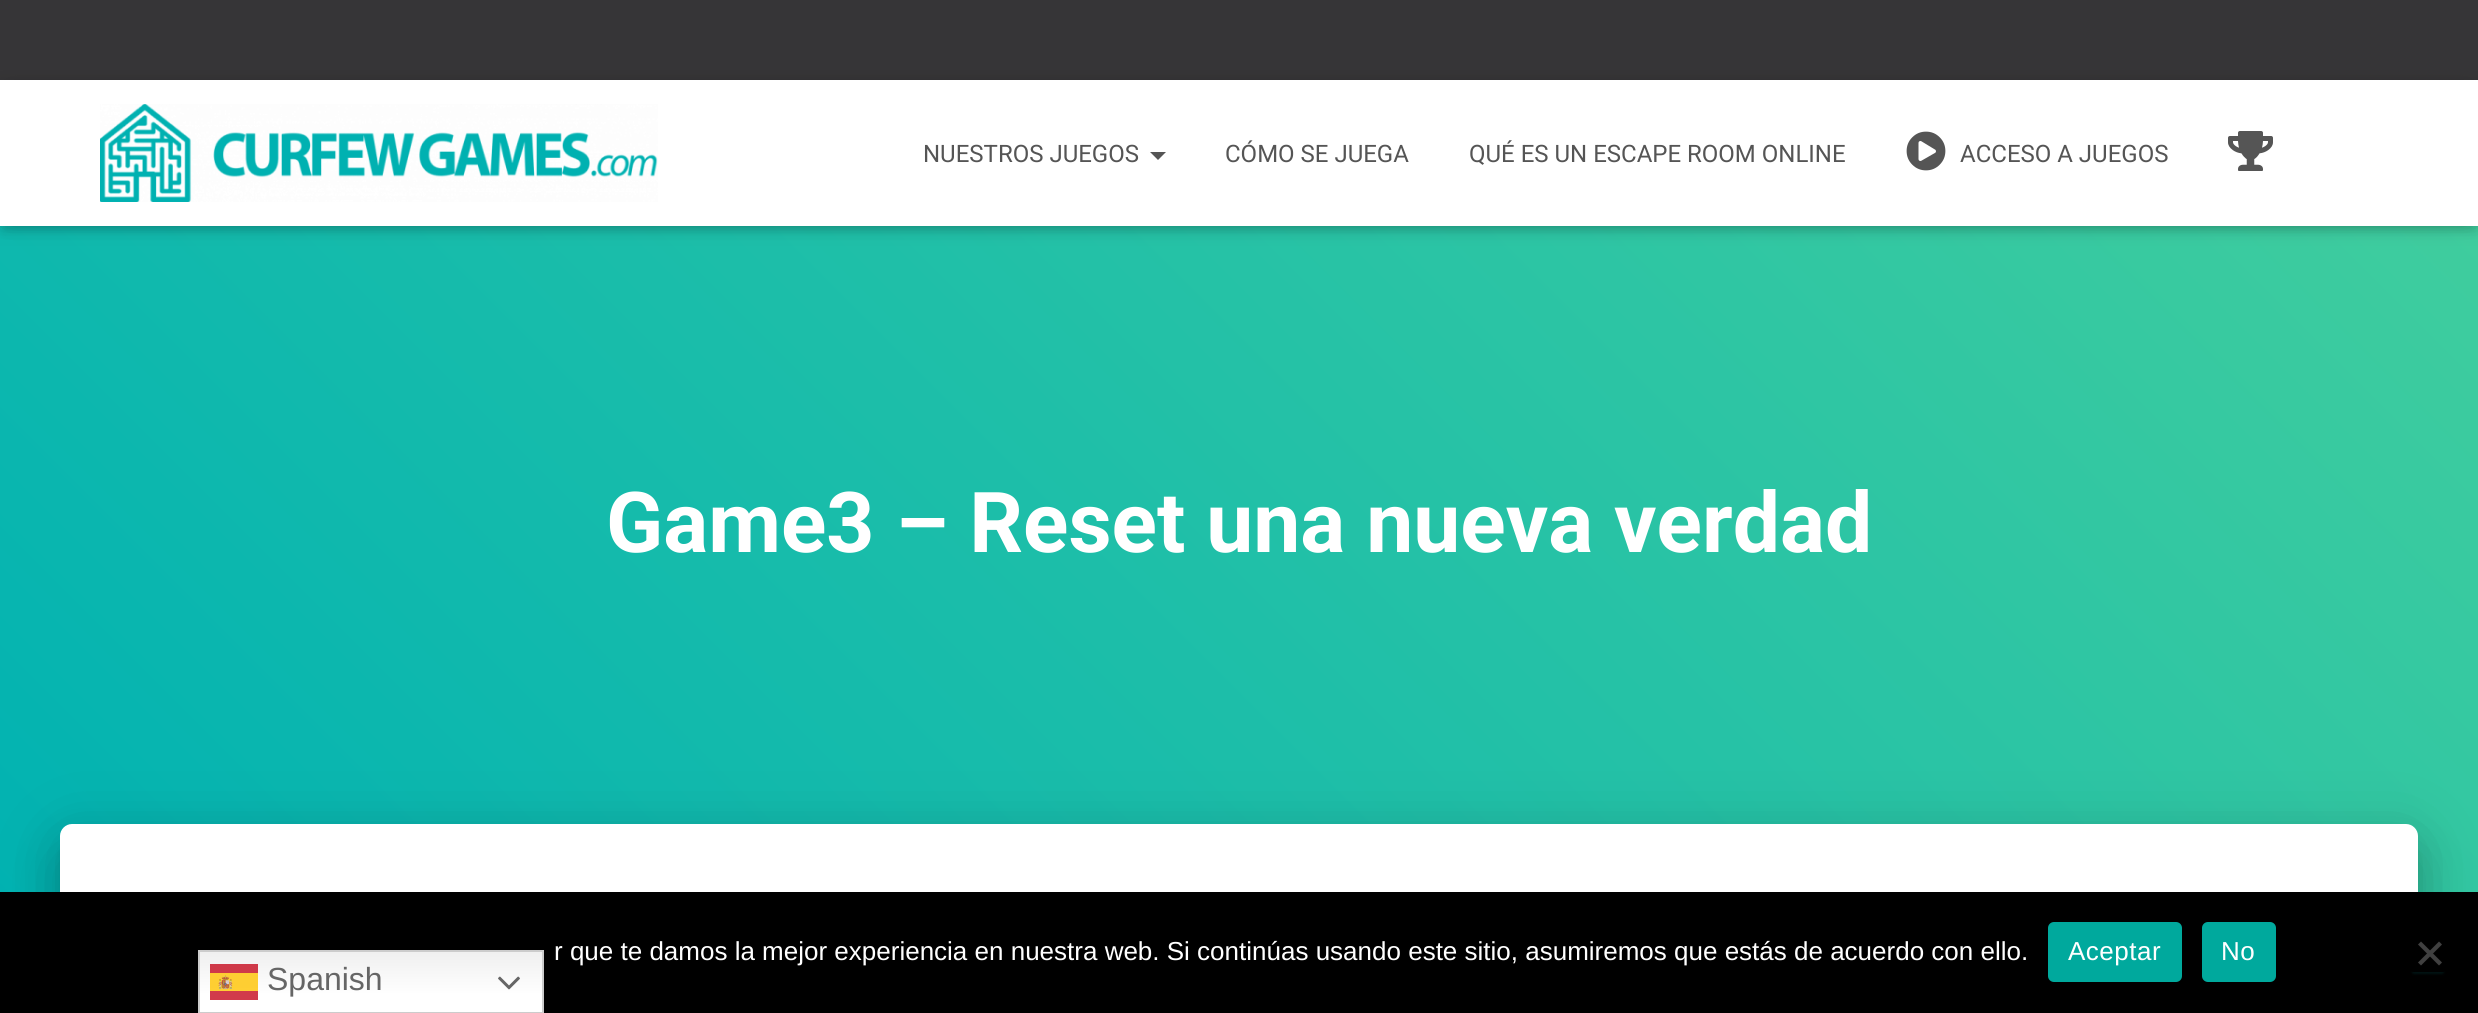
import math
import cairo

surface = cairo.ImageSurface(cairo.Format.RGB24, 2478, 1013)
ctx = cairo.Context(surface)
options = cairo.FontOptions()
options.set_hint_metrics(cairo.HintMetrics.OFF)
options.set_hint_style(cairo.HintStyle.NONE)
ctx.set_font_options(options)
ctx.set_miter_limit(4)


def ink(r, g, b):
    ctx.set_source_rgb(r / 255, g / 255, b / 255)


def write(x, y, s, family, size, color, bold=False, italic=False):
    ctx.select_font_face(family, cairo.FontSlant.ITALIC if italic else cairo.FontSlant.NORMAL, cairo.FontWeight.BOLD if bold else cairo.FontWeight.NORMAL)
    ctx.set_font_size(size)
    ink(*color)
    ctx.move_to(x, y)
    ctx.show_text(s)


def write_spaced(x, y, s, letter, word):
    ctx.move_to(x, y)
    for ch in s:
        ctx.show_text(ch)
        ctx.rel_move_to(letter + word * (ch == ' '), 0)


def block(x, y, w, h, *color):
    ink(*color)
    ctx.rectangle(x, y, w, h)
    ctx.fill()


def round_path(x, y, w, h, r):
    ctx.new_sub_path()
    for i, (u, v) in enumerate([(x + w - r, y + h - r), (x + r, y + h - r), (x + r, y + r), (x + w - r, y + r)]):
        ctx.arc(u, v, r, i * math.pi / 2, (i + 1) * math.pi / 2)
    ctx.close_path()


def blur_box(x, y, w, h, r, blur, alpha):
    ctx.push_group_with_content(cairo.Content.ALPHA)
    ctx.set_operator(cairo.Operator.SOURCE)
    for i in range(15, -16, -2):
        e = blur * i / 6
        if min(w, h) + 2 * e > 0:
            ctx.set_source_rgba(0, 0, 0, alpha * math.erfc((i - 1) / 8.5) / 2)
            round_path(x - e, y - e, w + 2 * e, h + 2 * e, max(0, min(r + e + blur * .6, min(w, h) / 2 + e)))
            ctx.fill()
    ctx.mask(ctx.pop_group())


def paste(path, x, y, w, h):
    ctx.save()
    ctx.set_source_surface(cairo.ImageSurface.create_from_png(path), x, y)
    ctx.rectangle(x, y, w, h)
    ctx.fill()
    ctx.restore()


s1 = dict(family="Roboto", size=24, color=(85, 85, 85))
s2 = dict(family="Roboto", size=84, color=(255, 255, 255), bold=True)
s3 = dict(family="Liberation Sans", size=26, color=(255, 255, 255))
s4 = dict(family="Liberation Sans", size=32, color=(102, 102, 102))

ink(54, 53, 55)
ctx.paint()
gradient = cairo.LinearGradient(404, 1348, 2075, -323)
gradient.add_color_stop_rgba(0, 0, 0.698, 0.698, 1)
gradient.add_color_stop_rgba(1, 0.259, 0.808, 0.616, 1)
ctx.set_source(gradient)
ctx.rectangle(0, 226, 2478, 666)
ctx.fill()
ink(0, 0, 0)
blur_box(4, 92, 2470, 138, 0, 5, 0.1)
blur_box(0, 82, 2478, 146, 0, 10, 0.12)
blur_box(12, 94, 2454, 122, 0, 10, 0.42)
block(0, 80, 2478, 146, 255, 255, 255)
paste("pic1.png", 100, 104, 558, 98)
write(923, 162, "NUESTROS JUEGOS", **s1)
ctx.new_path()
ctx.move_to(1150, 152)
ctx.line_to(1166, 152)
ctx.line_to(1158, 160)
ctx.close_path()
ctx.fill()
write(1225, 162, "CÓMO SE JUEGA", **s1)
write(1469, 162, "QUÉ ES UN ESCAPE ROOM ONLINE", **s1)
paste("pic2.png", 1906, 131, 40, 40)
write(1960, 162, "ACCESO A JUEGOS", **s1)
paste("pic3.png", 2228, 131, 45, 40)
write(606, 552, "Game3 – Reset una nueva verdad", **s2)
ink(0, 0, 0)
blur_box(70, 850, 2338, 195, 2, 10, 0.2)
blur_box(50, 826, 2378, 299, 22, 30, 0.12)
blur_box(56, 852, 2366, 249, 16, 24, 0.14)
ink(255, 255, 255)
ctx.new_path()
ctx.move_to(72, 824)
ctx.line_to(2406, 824)
ctx.curve_to(2412.5, 824, 2418, 829.5, 2418, 836)
ctx.line_to(2418, 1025)
ctx.line_to(60, 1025)
ctx.line_to(60, 836)
ctx.curve_to(60, 829.5, 65.5, 824, 72, 824)
ctx.close_path()
ctx.fill()
block(0, 892, 2478, 121, 0, 0, 0)
write(554, 960, "r que te damos la mejor experiencia en nuestra web. Si continúas usando este sitio, asumiremos que estás de acuerdo con ello.", **s3)
ink(0, 169, 157)
round_path(2048, 922, 134, 60, 6)
ctx.fill()
ink(255, 255, 255)
write_spaced(2068, 960, "Aceptar", 0.5, 0)
ink(0, 169, 157)
round_path(2202, 922, 74, 60, 6)
ctx.fill()
ink(255, 255, 255)
write_spaced(2221, 960, "No", 0.5, 0)
ctx.save()
ctx.set_fill_rule(cairo.FillRule.EVEN_ODD)
ctx.new_path()
ctx.move_to(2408, 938)
ctx.line_to(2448, 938)
ctx.line_to(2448, 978)
ctx.line_to(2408, 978)
ctx.close_path()
ctx.move_to(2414, 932)
ctx.line_to(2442, 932)
ctx.curve_to(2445.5, 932, 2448, 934.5, 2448, 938)
ctx.line_to(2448, 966)
ctx.curve_to(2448, 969.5, 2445.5, 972, 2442, 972)
ctx.line_to(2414, 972)
ctx.curve_to(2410.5, 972, 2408, 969.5, 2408, 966)
ctx.line_to(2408, 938)
ctx.curve_to(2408, 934.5, 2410.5, 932, 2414, 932)
ctx.close_path()
ctx.clip()
ink(0, 89, 89)
blur_box(2412, 942, 32, 32, 2, 1, 0.2)
ctx.restore()
ink(64, 64, 64)
ctx.new_path()
ctx.move_to(2439, 941.5)
ctx.line_to(2442, 944.5)
ctx.line_to(2421, 965.5)
ctx.line_to(2418, 962.5)
ctx.close_path()
ctx.fill()
ctx.new_path()
ctx.move_to(2418, 944.5)
ctx.line_to(2421, 941.5)
ctx.line_to(2442, 962.5)
ctx.line_to(2439, 965.5)
ctx.close_path()
ctx.fill()
gradient = cairo.LinearGradient(371, 950, 371, 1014)
gradient.add_color_stop_rgba(0, 0.937, 0.937, 0.937, 1)
gradient.add_color_stop_rgba(0.7, 1, 1, 1, 1)
ctx.set_source(gradient)
ctx.rectangle(200, 952, 342, 60)
ctx.fill()
ctx.rectangle(199, 951, 344, 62)
ink(204, 204, 204)
ctx.stroke()
paste("pic4.png", 210, 964, 48, 36)
write(267, 990, "Spanish", **s4)
paste("pic5.png", 498, 976, 22, 14)
surface.write_to_png("screenshot.png")
